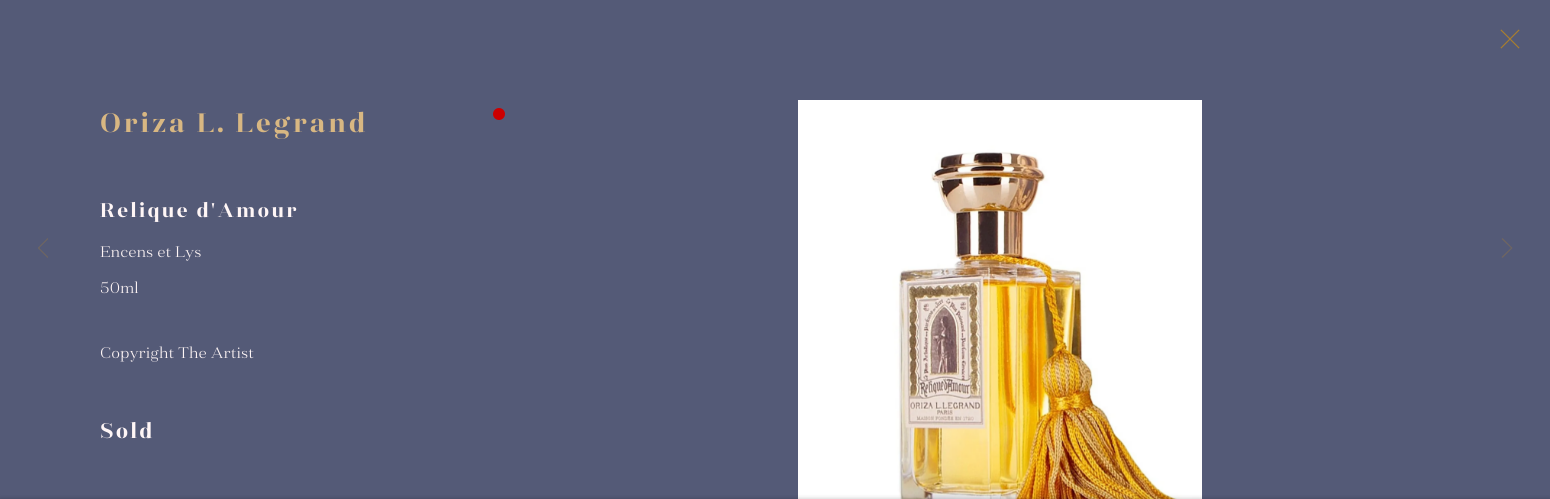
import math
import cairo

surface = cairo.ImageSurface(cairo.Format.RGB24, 1550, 499)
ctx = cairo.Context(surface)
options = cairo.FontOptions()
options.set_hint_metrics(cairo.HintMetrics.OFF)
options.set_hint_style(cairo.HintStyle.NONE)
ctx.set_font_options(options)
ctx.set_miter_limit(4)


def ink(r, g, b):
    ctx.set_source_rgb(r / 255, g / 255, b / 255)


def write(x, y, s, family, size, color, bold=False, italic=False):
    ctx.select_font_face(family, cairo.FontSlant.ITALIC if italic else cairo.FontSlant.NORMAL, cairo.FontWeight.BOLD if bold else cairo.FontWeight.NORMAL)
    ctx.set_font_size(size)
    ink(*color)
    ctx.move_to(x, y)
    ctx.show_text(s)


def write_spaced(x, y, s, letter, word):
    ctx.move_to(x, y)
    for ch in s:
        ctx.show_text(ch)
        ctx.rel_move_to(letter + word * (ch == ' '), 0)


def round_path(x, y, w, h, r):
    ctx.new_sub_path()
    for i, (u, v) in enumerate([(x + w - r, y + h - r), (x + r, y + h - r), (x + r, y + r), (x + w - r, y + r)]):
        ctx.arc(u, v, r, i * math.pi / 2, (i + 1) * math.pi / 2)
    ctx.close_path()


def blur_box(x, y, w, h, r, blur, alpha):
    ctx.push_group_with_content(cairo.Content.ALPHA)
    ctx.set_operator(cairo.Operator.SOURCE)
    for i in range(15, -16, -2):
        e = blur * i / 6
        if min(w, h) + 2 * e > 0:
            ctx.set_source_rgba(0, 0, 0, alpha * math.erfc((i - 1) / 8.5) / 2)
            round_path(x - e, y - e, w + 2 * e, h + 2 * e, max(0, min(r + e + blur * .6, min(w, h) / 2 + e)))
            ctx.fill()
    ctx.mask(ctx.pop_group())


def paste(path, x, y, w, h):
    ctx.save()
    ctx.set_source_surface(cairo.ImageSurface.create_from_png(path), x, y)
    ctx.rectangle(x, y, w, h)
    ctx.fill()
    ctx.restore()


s1 = dict(family="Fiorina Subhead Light", size=15.25, color=(255, 246, 246))

ink(84, 90, 119)
ctx.paint()
paste("pic1.png", 1500, 29, 20, 20)
ctx.select_font_face("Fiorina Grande", cairo.FontSlant.NORMAL, cairo.FontWeight.BOLD)
ctx.set_font_size(26.6)
ink(216, 183, 130)
write_spaced(100, 132, "Oriza L. Legrand", 2.7, 0)
ink(204, 0, 0)
ctx.new_path()
ctx.arc(499, 114, 6, 0, 2 * math.pi)
ctx.fill()
ctx.set_font_size(19.75)
ink(255, 246, 246)
write_spaced(100, 217, "Relique d'Amour", 2, 0)
write(100, 257, "Encens et Lys", **s1)
write(100, 293, "50ml", **s1)
write(100, 358, "Copyright The Artist", **s1)
ctx.select_font_face("Fiorina Grande", cairo.FontSlant.NORMAL, cairo.FontWeight.BOLD)
ctx.set_font_size(21)
write_spaced(100, 438, "Sold", 2, 0)
paste("pic2.png", 798, 100, 404, 399)
paste("pic3.png", 38, 238, 10, 20)
ink(111, 101, 96)
ctx.new_path()
ctx.move_to(1512.5, 248)
ctx.line_to(1502.5, 238)
ctx.line_to(1501.5, 239)
ctx.line_to(1511, 248)
ctx.line_to(1501.5, 257)
ctx.line_to(1502.5, 258)
ctx.close_path()
ctx.fill()
ink(0, 0, 0)
blur_box(0, 499, 1550, 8, 0, 2.5, 0.23)
surface.write_to_png("screenshot.png")
